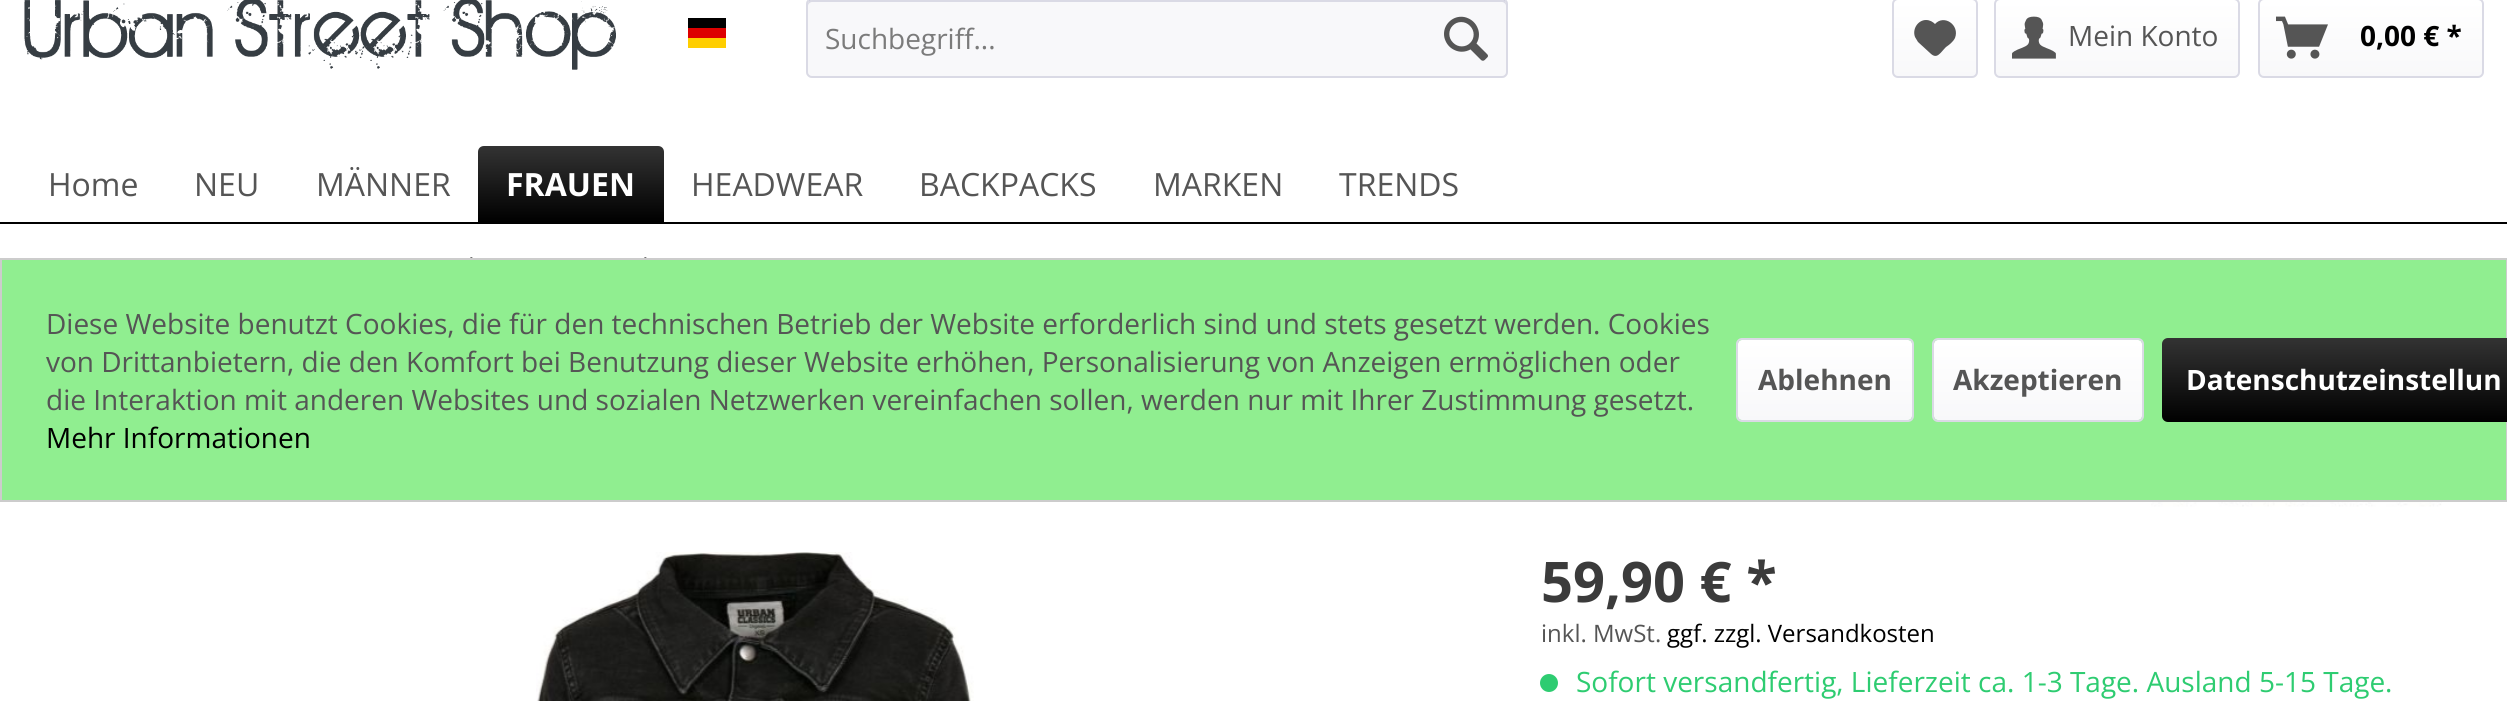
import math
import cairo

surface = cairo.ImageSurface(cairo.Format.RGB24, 2507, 701)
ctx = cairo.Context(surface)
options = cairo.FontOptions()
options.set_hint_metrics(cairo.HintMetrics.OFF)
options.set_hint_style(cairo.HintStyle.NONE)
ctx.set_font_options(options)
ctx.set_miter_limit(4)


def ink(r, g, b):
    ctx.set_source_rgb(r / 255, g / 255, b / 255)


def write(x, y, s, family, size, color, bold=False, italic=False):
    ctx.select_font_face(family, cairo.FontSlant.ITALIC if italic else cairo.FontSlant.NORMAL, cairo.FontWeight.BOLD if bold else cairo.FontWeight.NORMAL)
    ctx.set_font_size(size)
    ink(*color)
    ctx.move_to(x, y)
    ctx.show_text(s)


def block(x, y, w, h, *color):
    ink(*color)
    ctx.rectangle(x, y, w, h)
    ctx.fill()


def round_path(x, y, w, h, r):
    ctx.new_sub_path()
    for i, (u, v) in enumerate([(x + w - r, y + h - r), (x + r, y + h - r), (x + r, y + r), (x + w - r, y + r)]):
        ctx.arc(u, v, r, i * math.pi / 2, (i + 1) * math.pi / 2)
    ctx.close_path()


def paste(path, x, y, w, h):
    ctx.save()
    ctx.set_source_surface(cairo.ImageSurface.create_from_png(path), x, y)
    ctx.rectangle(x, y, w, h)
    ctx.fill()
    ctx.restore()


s1 = dict(family="Open Sans", size=28, color=(123, 123, 123))
s2 = dict(family="Open Sans", size=28, color=(85, 85, 85))
s3 = dict(family="Open Sans", size=28, color=(0, 0, 0), bold=True)
s4 = dict(family="Open Sans", size=32, color=(85, 85, 85))
s5 = dict(family="Open Sans", size=32, color=(255, 255, 255), bold=True)
s6 = dict(family="Open Sans", size=56, color=(59, 59, 59), bold=True)
s7 = dict(family="Open Sans", size=24, color=(85, 85, 85))
s8 = dict(family="Open Sans", size=24, color=(0, 0, 0))
s9 = dict(family="Open Sans", size=28, color=(46, 204, 113))
s10 = dict(family="Open Sans", size=28, color=(0, 0, 0))
s11 = dict(family="Open Sans", size=28, color=(85, 85, 85), bold=True)
s12 = dict(family="Open Sans", size=28, color=(255, 255, 255), bold=True)

ink(255, 255, 255)
ctx.paint()
paste("pic1.png", 24, 0, 592, 70)
block(688, 18, 38, 10, 0, 0, 0)
block(688, 28, 38, 10, 221, 0, 0)
block(688, 38, 38, 10, 255, 206, 0)
ink(248, 248, 250)
round_path(806, -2, 702, 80, 6)
ctx.fill()
ink(218, 218, 229)
ctx.new_path()
ctx.move_to(812, 2)
ctx.line_to(1502, 2)
ctx.curve_to(1504, 2, 1506, 4, 1506, 6)
ctx.curve_to(1506, 3, 1506, 0, 1502, 0)
ctx.line_to(812, 0)
ctx.curve_to(808, 0, 808, 3, 808, 6)
ctx.curve_to(808, 4, 810, 2, 812, 2)
ctx.close_path()
ctx.fill()
ctx.new_path()
ctx.move_to(808.5, 0.5)
ctx.curve_to(809.5, -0.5, 810.5, -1, 812, -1)
ctx.line_to(1502, -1)
ctx.curve_to(1503.5, -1, 1504.5, -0.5, 1505.5, 0.5)
ink(203, 203, 219)
ctx.stroke()
ctx.new_path()
ctx.move_to(1505.5, 0.5)
ctx.curve_to(1506.5, 1.5, 1507, 2.5, 1507, 4)
ctx.line_to(1507, 72)
ctx.curve_to(1507, 73.5, 1506.5, 74.5, 1505.5, 75.5)
ctx.curve_to(1504.5, 76.5, 1503.5, 77, 1502, 77)
ctx.line_to(812, 77)
ctx.curve_to(810.5, 77, 809.5, 76.5, 808.5, 75.5)
ctx.curve_to(807.5, 74.5, 807, 73.5, 807, 72)
ctx.line_to(807, 4)
ctx.curve_to(807, 2.5, 807.5, 1.5, 808.5, 0.5)
ink(218, 218, 229)
ctx.stroke()
write(825, 49, "Suchbegriff...", **s1)
paste("pic2.png", 1444, 16, 44, 45)
gradient = cairo.LinearGradient(1935, 0, 1935, 76)
gradient.add_color_stop_rgba(0, 1, 1, 1, 1)
gradient.add_color_stop_rgba(1, 0.973, 0.973, 0.98, 1)
ctx.set_source(gradient)
round_path(1894, 0, 82, 76, 4)
ctx.fill()
round_path(1893, -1, 84, 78, 5)
ink(218, 218, 229)
ctx.stroke()
ink(85, 85, 85)
ctx.new_path()
ctx.move_to(1926, 20)
ctx.curve_to(1918, 20, 1912, 29, 1915, 37)
ctx.line_to(1918, 42)
ctx.line_to(1930, 53)
ctx.curve_to(1937, 60, 1940, 53, 1946, 47)
ctx.curve_to(1949, 45, 1953, 42, 1955, 38)
ctx.curve_to(1960, 25, 1944, 14, 1935, 24)
ctx.curve_to(1933, 22, 1930, 20, 1926, 20)
ctx.close_path()
ctx.fill()
gradient = cairo.LinearGradient(2117, 0, 2117, 76)
gradient.add_color_stop_rgba(0, 1, 1, 1, 1)
gradient.add_color_stop_rgba(1, 0.973, 0.973, 0.98, 1)
ctx.set_source(gradient)
round_path(1996, 0, 242, 76, 4)
ctx.fill()
round_path(1995, -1, 244, 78, 5)
ink(218, 218, 229)
ctx.stroke()
paste("pic3.png", 2012, 16, 44, 43)
write(2068, 46, "Mein Konto", **s2)
gradient = cairo.LinearGradient(2371, 0, 2371, 76)
gradient.add_color_stop_rgba(0, 1, 1, 1, 1)
gradient.add_color_stop_rgba(1, 0.973, 0.973, 0.98, 1)
ctx.set_source(gradient)
round_path(2260, 0, 222, 76, 4)
ctx.fill()
round_path(2259, -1, 224, 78, 5)
ink(218, 218, 229)
ctx.stroke()
paste("pic4.png", 2276, 16, 52, 43)
write(2360, 46, "0,00 € *", **s3)
block(0, 222, 2507, 2, 0, 0, 0)
write(48, 196, "Home", **s4)
write(194, 196, "NEU", **s4)
write(316, 196, "MÄNNER", **s4)
gradient = cairo.LinearGradient(571, 146, 571, 222)
gradient.add_color_stop_rgba(0, 0.2, 0.2, 0.2, 1)
gradient.add_color_stop_rgba(1, 0, 0, 0, 1)
ctx.set_source(gradient)
ctx.new_path()
ctx.move_to(484, 146)
ctx.line_to(658, 146)
ctx.curve_to(661.5, 146, 664, 148.5, 664, 152)
ctx.line_to(664, 222)
ctx.line_to(478, 222)
ctx.line_to(478, 152)
ctx.curve_to(478, 148.5, 480.5, 146, 484, 146)
ctx.close_path()
ctx.fill()
write(506, 196, "FRAUEN", **s5)
write(691, 196, "HEADWEAR", **s4)
write(919, 196, "BACKPACKS", **s4)
write(1153, 196, "MARKEN", **s4)
write(1339, 196, "TRENDS", **s4)
paste("pic5.png", 470, 257, 3, 1)
paste("pic5.png", 644, 257, 3, 1)
paste("pic6.png", 2151, 502, 291, 5)
paste("pic7.png", 536, 552, 438, 149)
write(1541, 602, "59,90 € *", **s6)
write(1541, 642, "inkl. MwSt.", **s7)
write(1667, 642, "ggf. zzgl. Versandkosten", **s8)
ink(46, 204, 113)
ctx.new_path()
ctx.arc(1549, 683, 9, 0, 2 * math.pi)
ctx.fill()
write(1576, 692, "Sofort versandfertig, Lieferzeit ca. 1-3 Tage. Ausland 5-15 Tage.", **s9)
ink(144, 238, 144)
ctx.rectangle(1, 259, 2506, 242)
ctx.fill_preserve()
ink(204, 204, 204)
ctx.stroke()
write(46, 334, "Diese Website benutzt Cookies, die für den technischen Betrieb der Website erforderlich sind und stets gesetzt werden. Cookies", **s2)
write(46, 372, "von Drittanbietern, die den Komfort bei Benutzung dieser Website erhöhen, Personalisierung von Anzeigen ermöglichen oder", **s2)
write(46, 410, "die Interaktion mit anderen Websites und sozialen Netzwerken vereinfachen sollen, werden nur mit Ihrer Zustimmung gesetzt.", **s2)
write(46, 448, "Mehr Informationen", **s10)
gradient = cairo.LinearGradient(1825, 340, 1825, 420)
gradient.add_color_stop_rgba(0, 1, 1, 1, 1)
gradient.add_color_stop_rgba(1, 0.973, 0.973, 0.98, 1)
ctx.set_source(gradient)
round_path(1738, 340, 174, 80, 4)
ctx.fill()
round_path(1737, 339, 176, 82, 5)
ink(218, 218, 229)
ctx.stroke()
write(1758, 390, "Ablehnen", **s11)
gradient = cairo.LinearGradient(2038, 340, 2038, 420)
gradient.add_color_stop_rgba(0, 1, 1, 1, 1)
gradient.add_color_stop_rgba(1, 0.973, 0.973, 0.98, 1)
ctx.set_source(gradient)
round_path(1934, 340, 208, 80, 4)
ctx.fill()
round_path(1933, 339, 210, 82, 5)
ink(218, 218, 229)
ctx.stroke()
write(1953, 390, "Akzeptieren", **s11)
gradient = cairo.LinearGradient(2369, 338, 2369, 422)
gradient.add_color_stop_rgba(0, 0.2, 0.2, 0.2, 1)
gradient.add_color_stop_rgba(1, 0, 0, 0, 1)
ctx.set_source(gradient)
round_path(2162, 338, 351, 84, 6)
ctx.fill()
write(2186, 390, "Datenschutzeinstellun", **s12)
surface.write_to_png("screenshot.png")
